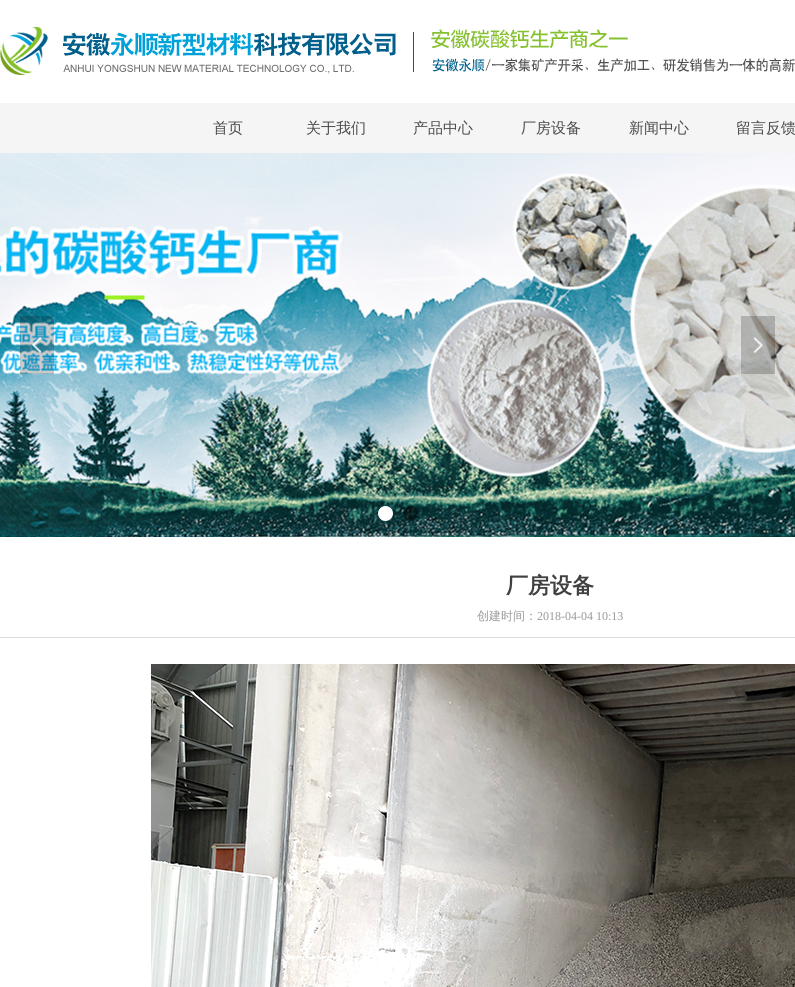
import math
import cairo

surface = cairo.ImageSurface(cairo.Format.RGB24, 795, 987)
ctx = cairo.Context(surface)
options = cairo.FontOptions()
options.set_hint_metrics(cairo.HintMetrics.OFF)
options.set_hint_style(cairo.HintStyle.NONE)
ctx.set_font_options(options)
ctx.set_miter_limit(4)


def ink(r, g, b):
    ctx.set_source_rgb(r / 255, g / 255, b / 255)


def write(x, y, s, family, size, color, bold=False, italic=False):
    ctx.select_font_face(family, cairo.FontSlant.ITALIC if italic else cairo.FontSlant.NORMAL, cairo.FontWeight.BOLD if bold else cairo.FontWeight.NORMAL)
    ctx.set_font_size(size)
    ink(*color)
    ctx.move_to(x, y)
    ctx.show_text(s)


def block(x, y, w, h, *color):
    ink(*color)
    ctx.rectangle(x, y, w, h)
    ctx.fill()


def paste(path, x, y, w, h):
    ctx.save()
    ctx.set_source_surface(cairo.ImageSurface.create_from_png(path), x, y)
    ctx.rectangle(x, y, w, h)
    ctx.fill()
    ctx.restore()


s1 = dict(family="WenQuanYi Zen Hei Medium", size=15, color=(74, 74, 74))
s2 = dict(family="WenQuanYi Zen Hei", size=22, color=(64, 64, 64), bold=True)
s3 = dict(family="WenQuanYi Zen Hei Medium", size=12, color=(153, 153, 153))
s4 = dict(family="Liberation Serif", size=12, color=(153, 153, 153))

ink(255, 255, 255)
ctx.paint()
paste("pic1.png", 0, 27, 795, 48)
block(0, 103, 795, 50, 245, 245, 245)
write(213, 133, "首页", **s1)
write(306, 133, "关于我们", **s1)
write(413, 133, "产品中心", **s1)
write(521, 133, "厂房设备", **s1)
write(629, 133, "新闻中心", **s1)
write(736, 133, "留言反馈", **s1)
paste("pic2.png", 0, 153, 795, 384)
ctx.set_source_rgba(0, 0, 0, 0.2)
ctx.rectangle(20, 316, 34, 58)
ctx.fill()
paste("pic3.png", 32, 337, 10, 16)
ctx.rectangle(741, 316, 34, 58)
ctx.fill()
paste("pic4.png", 753, 337, 10, 16)
ink(255, 255, 255)
ctx.arc(385.5, 513.5, 7.5, 0, 2 * math.pi)
ctx.fill()
ctx.set_source_rgba(0, 0, 0, 0.5)
ctx.arc(410.5, 513.5, 7.5, 0, 2 * math.pi)
ctx.fill()
write(506, 593, "厂房设备", **s2)
write(477, 620, "创建时间：", **s3)
write(537, 620, "2018-04-04 10:13", **s4)
block(0, 637, 795, 1, 221, 221, 221)
paste("pic5.png", 151, 664, 644, 323)
surface.write_to_png("screenshot.png")
